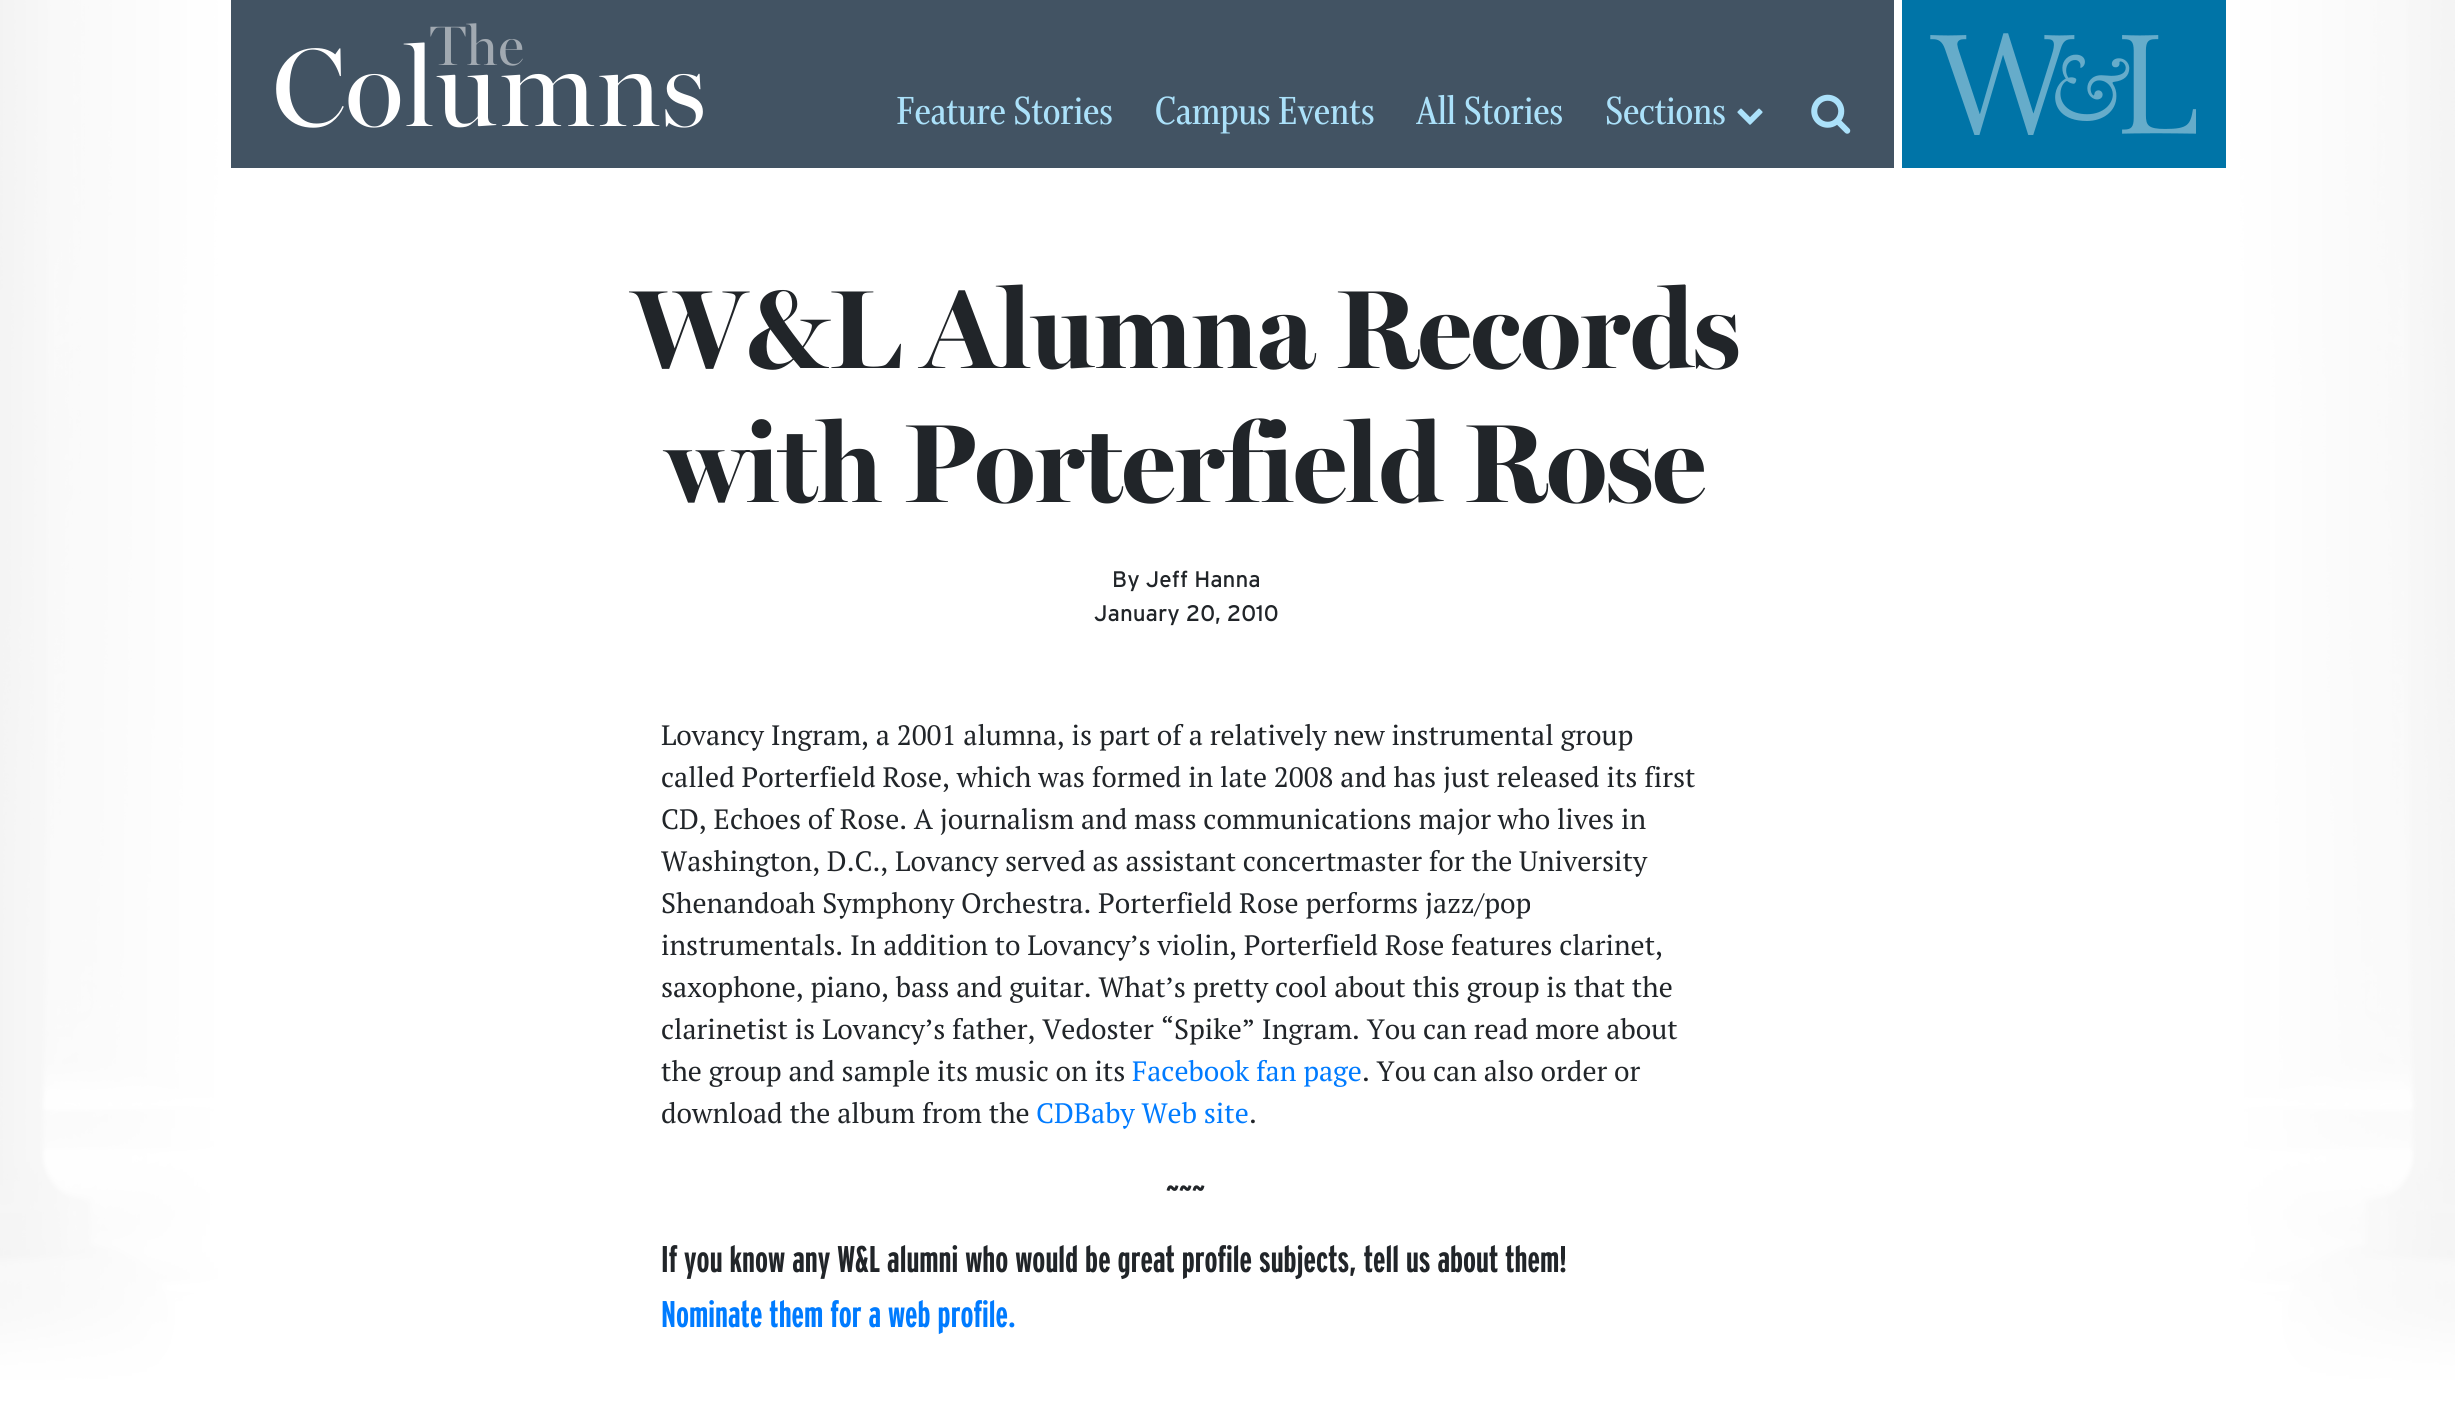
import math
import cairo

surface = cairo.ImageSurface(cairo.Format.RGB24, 2455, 1401)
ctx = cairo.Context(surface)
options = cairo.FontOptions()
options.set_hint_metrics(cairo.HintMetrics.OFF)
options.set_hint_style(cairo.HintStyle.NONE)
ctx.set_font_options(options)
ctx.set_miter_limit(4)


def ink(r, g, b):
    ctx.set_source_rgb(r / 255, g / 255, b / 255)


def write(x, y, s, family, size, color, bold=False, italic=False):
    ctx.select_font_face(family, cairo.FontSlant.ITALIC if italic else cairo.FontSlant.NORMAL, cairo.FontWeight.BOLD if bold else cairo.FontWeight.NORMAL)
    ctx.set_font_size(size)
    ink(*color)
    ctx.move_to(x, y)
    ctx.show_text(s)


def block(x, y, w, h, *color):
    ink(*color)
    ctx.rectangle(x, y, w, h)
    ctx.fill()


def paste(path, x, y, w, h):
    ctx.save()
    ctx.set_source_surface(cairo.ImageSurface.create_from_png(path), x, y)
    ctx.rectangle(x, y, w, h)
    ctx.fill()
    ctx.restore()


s1 = dict(family="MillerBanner", size=112, color=(255, 255, 255))
s2 = dict(family="MillerBanner", size=56, color=(161, 169, 177))
s3 = dict(family="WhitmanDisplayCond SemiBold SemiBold", size=42, color=(171, 225, 250))
s4 = dict(family="MillerBanner", size=112, color=(33, 37, 41), bold=True)
s5 = dict(family="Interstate", size=22.5, color=(33, 37, 41))
s6 = dict(family="PT Serif", size=28, color=(33, 37, 41))
s7 = dict(family="PT Serif", size=28, color=(0, 123, 255))
s8 = dict(family="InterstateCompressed", size=37.1, color=(33, 37, 41), bold=True)
s9 = dict(family="InterstateCompressed", size=37.1, color=(0, 123, 255), bold=True)

ink(255, 255, 255)
ctx.paint()
paste("pic1.png", 0, 0, 226, 1380)
gradient = cairo.LinearGradient(-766, 701, 1229, 701)
gradient.add_color_stop_rgba(0, 1, 1, 1, 0)
gradient.add_color_stop_rgba(0.5, 1, 1, 1, 1)
gradient.add_color_stop_rgba(1, 1, 1, 1, 1)
ctx.set_source(gradient)
ctx.rectangle(0, 0, 226, 1380)
ctx.fill()
paste("pic2.png", 2232, 0, 223, 1380)
block(231, 0, 1663, 168, 66, 83, 99)
write(272, 126, "Columns", **s1)
write(430, 65, "The", **s2)
write(896, 124, "Feature Stories", **s3)
write(1155, 124, "Campus Events", **s3)
write(1416, 124, "All Stories", **s3)
write(1605, 124, "Sections", **s3)
paste("pic3.png", 1737, 108, 26, 17)
paste("pic4.png", 1811, 94, 40, 40)
block(1902, 0, 324, 168, 0, 116, 167)
paste("pic5.png", 1930, 33, 266, 102)
write(632, 368, "W&L Alumna Records", **s4)
write(666, 502, "with Porterfield Rose", **s4)
write(1112, 587, "By Jeff Hanna", **s5)
write(1094, 621, "January 20, 2010", **s5)
write(661, 745, "Lovancy Ingram, a 2001 alumna, is part of a relatively new instrumental group", **s6)
write(661, 787, "called Porterfield Rose, which was formed in late 2008 and has just released its first", **s6)
write(661, 829, "CD, Echoes of Rose. A journalism and mass communications major who lives in", **s6)
write(661, 871, "Washington, D.C., Lovancy served as assistant concertmaster for the University", **s6)
write(661, 913, "Shenandoah Symphony Orchestra. Porterfield Rose performs jazz/pop", **s6)
write(661, 955, "instrumentals. In addition to Lovancy’s violin, Porterfield Rose features clarinet,", **s6)
write(661, 997, "saxophone, piano, bass and guitar. What’s pretty cool about this group is that the", **s6)
write(661, 1039, "clarinetist is Lovancy’s father, Vedoster “Spike” Ingram. You can read more about", **s6)
write(661, 1081, "the group and sample its music on its", **s6)
write(1132, 1081, "Facebook fan page", **s7)
write(1362, 1081, ". You can also order or", **s6)
write(661, 1123, "download the album from the", **s6)
write(1036, 1123, "CDBaby Web site", **s7)
write(1249, 1123, ".", **s6)
write(1166, 1202, "~~~", **s8)
write(661, 1272, "If you know any W&L alumni who would be great profile subjects, tell us about them!", **s8)
write(661, 1327, "Nominate them for a web profile.", **s9)
gradient = cairo.LinearGradient(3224, 701, 1228, 701)
gradient.add_color_stop_rgba(0, 1, 1, 1, 0)
gradient.add_color_stop_rgba(0.5, 1, 1, 1, 1)
gradient.add_color_stop_rgba(1, 1, 1, 1, 1)
ctx.set_source(gradient)
ctx.rectangle(2232, 0, 223, 1380)
ctx.fill()
surface.write_to_png("screenshot.png")
